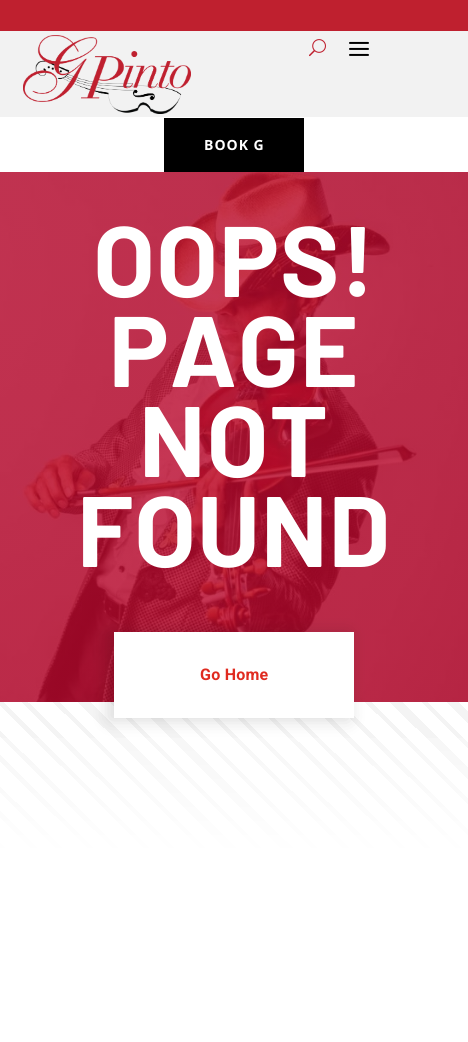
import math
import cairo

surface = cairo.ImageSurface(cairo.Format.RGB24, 468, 1042)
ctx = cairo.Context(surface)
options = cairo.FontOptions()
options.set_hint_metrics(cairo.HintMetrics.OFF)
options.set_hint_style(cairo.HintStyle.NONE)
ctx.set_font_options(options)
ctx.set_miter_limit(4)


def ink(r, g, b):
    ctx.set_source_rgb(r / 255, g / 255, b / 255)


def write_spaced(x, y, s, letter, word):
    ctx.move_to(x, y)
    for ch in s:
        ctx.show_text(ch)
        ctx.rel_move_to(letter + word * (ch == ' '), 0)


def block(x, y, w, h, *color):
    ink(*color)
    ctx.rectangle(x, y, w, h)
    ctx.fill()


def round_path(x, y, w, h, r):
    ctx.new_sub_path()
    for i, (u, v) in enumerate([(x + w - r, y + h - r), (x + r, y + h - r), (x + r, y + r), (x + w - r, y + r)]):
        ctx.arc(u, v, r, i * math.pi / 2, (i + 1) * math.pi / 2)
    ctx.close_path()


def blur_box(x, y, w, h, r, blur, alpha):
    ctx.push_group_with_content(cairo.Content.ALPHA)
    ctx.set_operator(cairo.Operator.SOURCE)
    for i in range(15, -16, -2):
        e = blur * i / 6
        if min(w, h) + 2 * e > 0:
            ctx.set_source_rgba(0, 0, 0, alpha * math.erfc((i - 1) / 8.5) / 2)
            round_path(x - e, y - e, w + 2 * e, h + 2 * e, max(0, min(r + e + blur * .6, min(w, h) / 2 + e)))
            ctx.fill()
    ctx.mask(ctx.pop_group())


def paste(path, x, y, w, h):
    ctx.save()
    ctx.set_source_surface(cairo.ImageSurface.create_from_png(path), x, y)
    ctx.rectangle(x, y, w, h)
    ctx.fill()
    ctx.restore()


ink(255, 255, 255)
ctx.paint()
block(0, 31, 468, 86, 242, 242, 242)
block(0, 0, 468, 31, 191, 32, 47)
paste("pic1.png", 23, 35, 168, 79)
paste("pic2.png", 309, 39, 17, 18)
paste("pic3.png", 349, 41, 20, 15)
block(164, 118, 140, 54, 0, 0, 0)
ctx.select_font_face("Open Sans", cairo.FontSlant.NORMAL, cairo.FontWeight.BOLD)
ctx.set_font_size(14)
ink(255, 255, 255)
write_spaced(204, 150, "BOOK G", 1, 0)
paste("pic4.png", 0, 172, 468, 530)
ctx.select_font_face("Barlow", cairo.FontSlant.NORMAL, cairo.FontWeight.BOLD)
ctx.set_font_size(100)
write_spaced(93, 297, "OOPS!", 1, 0)
write_spaced(109, 387, "PAGE", 1, 0)
write_spaced(139, 477, "NOT", 1, 0)
write_spaced(77, 567, "FOUND", 1, 0)
gradient = cairo.LinearGradient(81, 929, 392, 617)
gradient.add_color_stop_rgba(0, 0.957, 0.957, 0.957, 1)
gradient.add_color_stop_rgba(0.01, 0.957, 0.957, 0.957, 1)
gradient.add_color_stop_rgba(0.01, 1, 1, 1, 1)
gradient.add_color_stop_rgba(0.05, 1, 1, 1, 1)
gradient.add_color_stop_rgba(0.05, 0.957, 0.957, 0.957, 1)
gradient.add_color_stop_rgba(0.06, 0.957, 0.957, 0.957, 1)
gradient.add_color_stop_rgba(0.06, 1, 1, 1, 1)
gradient.add_color_stop_rgba(0.09, 1, 1, 1, 1)
gradient.add_color_stop_rgba(0.09, 0.957, 0.957, 0.957, 1)
gradient.add_color_stop_rgba(0.1, 0.957, 0.957, 0.957, 1)
gradient.add_color_stop_rgba(0.1, 1, 1, 1, 1)
gradient.add_color_stop_rgba(0.14, 1, 1, 1, 1)
gradient.add_color_stop_rgba(0.14, 0.957, 0.957, 0.957, 1)
gradient.add_color_stop_rgba(0.15, 0.957, 0.957, 0.957, 1)
gradient.add_color_stop_rgba(0.15, 1, 1, 1, 1)
gradient.add_color_stop_rgba(0.18, 1, 1, 1, 1)
gradient.add_color_stop_rgba(0.18, 0.957, 0.957, 0.957, 1)
gradient.add_color_stop_rgba(0.19, 0.957, 0.957, 0.957, 1)
gradient.add_color_stop_rgba(0.19, 1, 1, 1, 1)
gradient.add_color_stop_rgba(0.23, 1, 1, 1, 1)
gradient.add_color_stop_rgba(0.23, 0.957, 0.957, 0.957, 1)
gradient.add_color_stop_rgba(0.24, 0.957, 0.957, 0.957, 1)
gradient.add_color_stop_rgba(0.24, 1, 1, 1, 1)
gradient.add_color_stop_rgba(0.27, 1, 1, 1, 1)
gradient.add_color_stop_rgba(0.27, 0.957, 0.957, 0.957, 1)
gradient.add_color_stop_rgba(0.28, 0.957, 0.957, 0.957, 1)
gradient.add_color_stop_rgba(0.28, 1, 1, 1, 1)
gradient.add_color_stop_rgba(0.32, 1, 1, 1, 1)
gradient.add_color_stop_rgba(0.32, 0.957, 0.957, 0.957, 1)
gradient.add_color_stop_rgba(0.33, 0.957, 0.957, 0.957, 1)
gradient.add_color_stop_rgba(0.33, 1, 1, 1, 1)
gradient.add_color_stop_rgba(0.36, 1, 1, 1, 1)
gradient.add_color_stop_rgba(0.36, 0.957, 0.957, 0.957, 1)
gradient.add_color_stop_rgba(0.38, 0.957, 0.957, 0.957, 1)
gradient.add_color_stop_rgba(0.38, 1, 1, 1, 1)
gradient.add_color_stop_rgba(0.41, 1, 1, 1, 1)
gradient.add_color_stop_rgba(0.41, 0.957, 0.957, 0.957, 1)
gradient.add_color_stop_rgba(0.42, 0.957, 0.957, 0.957, 1)
gradient.add_color_stop_rgba(0.42, 1, 1, 1, 1)
gradient.add_color_stop_rgba(0.45, 1, 1, 1, 1)
gradient.add_color_stop_rgba(0.45, 0.957, 0.957, 0.957, 1)
gradient.add_color_stop_rgba(0.47, 0.957, 0.957, 0.957, 1)
gradient.add_color_stop_rgba(0.47, 1, 1, 1, 1)
gradient.add_color_stop_rgba(0.5, 1, 1, 1, 1)
gradient.add_color_stop_rgba(0.5, 0.957, 0.957, 0.957, 1)
gradient.add_color_stop_rgba(0.51, 0.957, 0.957, 0.957, 1)
gradient.add_color_stop_rgba(0.51, 1, 1, 1, 1)
gradient.add_color_stop_rgba(0.55, 1, 1, 1, 1)
gradient.add_color_stop_rgba(0.55, 0.957, 0.957, 0.957, 1)
gradient.add_color_stop_rgba(0.56, 0.957, 0.957, 0.957, 1)
gradient.add_color_stop_rgba(0.56, 1, 1, 1, 1)
gradient.add_color_stop_rgba(0.59, 1, 1, 1, 1)
gradient.add_color_stop_rgba(0.59, 0.957, 0.957, 0.957, 1)
gradient.add_color_stop_rgba(0.6, 0.957, 0.957, 0.957, 1)
gradient.add_color_stop_rgba(0.6, 1, 1, 1, 1)
gradient.add_color_stop_rgba(0.64, 1, 1, 1, 1)
gradient.add_color_stop_rgba(0.64, 0.957, 0.957, 0.957, 1)
gradient.add_color_stop_rgba(0.65, 0.957, 0.957, 0.957, 1)
gradient.add_color_stop_rgba(0.65, 1, 1, 1, 1)
gradient.add_color_stop_rgba(0.68, 1, 1, 1, 1)
gradient.add_color_stop_rgba(0.68, 0.957, 0.957, 0.957, 1)
gradient.add_color_stop_rgba(0.69, 0.957, 0.957, 0.957, 1)
gradient.add_color_stop_rgba(0.69, 1, 1, 1, 1)
gradient.add_color_stop_rgba(0.73, 1, 1, 1, 1)
gradient.add_color_stop_rgba(0.73, 0.957, 0.957, 0.957, 1)
gradient.add_color_stop_rgba(0.74, 0.957, 0.957, 0.957, 1)
gradient.add_color_stop_rgba(0.74, 1, 1, 1, 1)
gradient.add_color_stop_rgba(0.77, 1, 1, 1, 1)
gradient.add_color_stop_rgba(0.77, 0.957, 0.957, 0.957, 1)
gradient.add_color_stop_rgba(0.78, 0.957, 0.957, 0.957, 1)
gradient.add_color_stop_rgba(0.78, 1, 1, 1, 1)
gradient.add_color_stop_rgba(0.82, 1, 1, 1, 1)
gradient.add_color_stop_rgba(0.82, 0.957, 0.957, 0.957, 1)
gradient.add_color_stop_rgba(0.83, 0.957, 0.957, 0.957, 1)
gradient.add_color_stop_rgba(0.83, 1, 1, 1, 1)
gradient.add_color_stop_rgba(0.86, 1, 1, 1, 1)
gradient.add_color_stop_rgba(0.86, 0.957, 0.957, 0.957, 1)
gradient.add_color_stop_rgba(0.88, 0.957, 0.957, 0.957, 1)
gradient.add_color_stop_rgba(0.88, 1, 1, 1, 1)
gradient.add_color_stop_rgba(0.91, 1, 1, 1, 1)
gradient.add_color_stop_rgba(0.91, 0.957, 0.957, 0.957, 1)
gradient.add_color_stop_rgba(0.92, 0.957, 0.957, 0.957, 1)
gradient.add_color_stop_rgba(0.92, 1, 1, 1, 1)
gradient.add_color_stop_rgba(0.95, 1, 1, 1, 1)
gradient.add_color_stop_rgba(0.95, 0.957, 0.957, 0.957, 1)
gradient.add_color_stop_rgba(0.97, 0.957, 0.957, 0.957, 1)
gradient.add_color_stop_rgba(0.97, 1, 1, 1, 1)
gradient.add_color_stop_rgba(1, 1, 1, 1, 1)
ctx.set_source(gradient)
ctx.rectangle(0, 702, 468, 146)
ctx.fill()
gradient = cairo.LinearGradient(234, 702, 234, 848)
gradient.add_color_stop_rgba(0, 1, 1, 1, 0)
gradient.add_color_stop_rgba(1, 1, 1, 1, 0.95)
ctx.set_source(gradient)
ctx.rectangle(0, 738, 468, 110)
ctx.fill()
ink(0, 0, 0)
blur_box(109, 634, 240, 86, 0, 9, 0.15)
block(114, 632, 240, 86, 255, 255, 255)
ctx.select_font_face("Roboto", cairo.FontSlant.NORMAL, cairo.FontWeight.BOLD)
ctx.set_font_size(16)
ink(224, 43, 32)
write_spaced(200, 680, "Go Home", 0.25, 0)
surface.write_to_png("screenshot.png")
